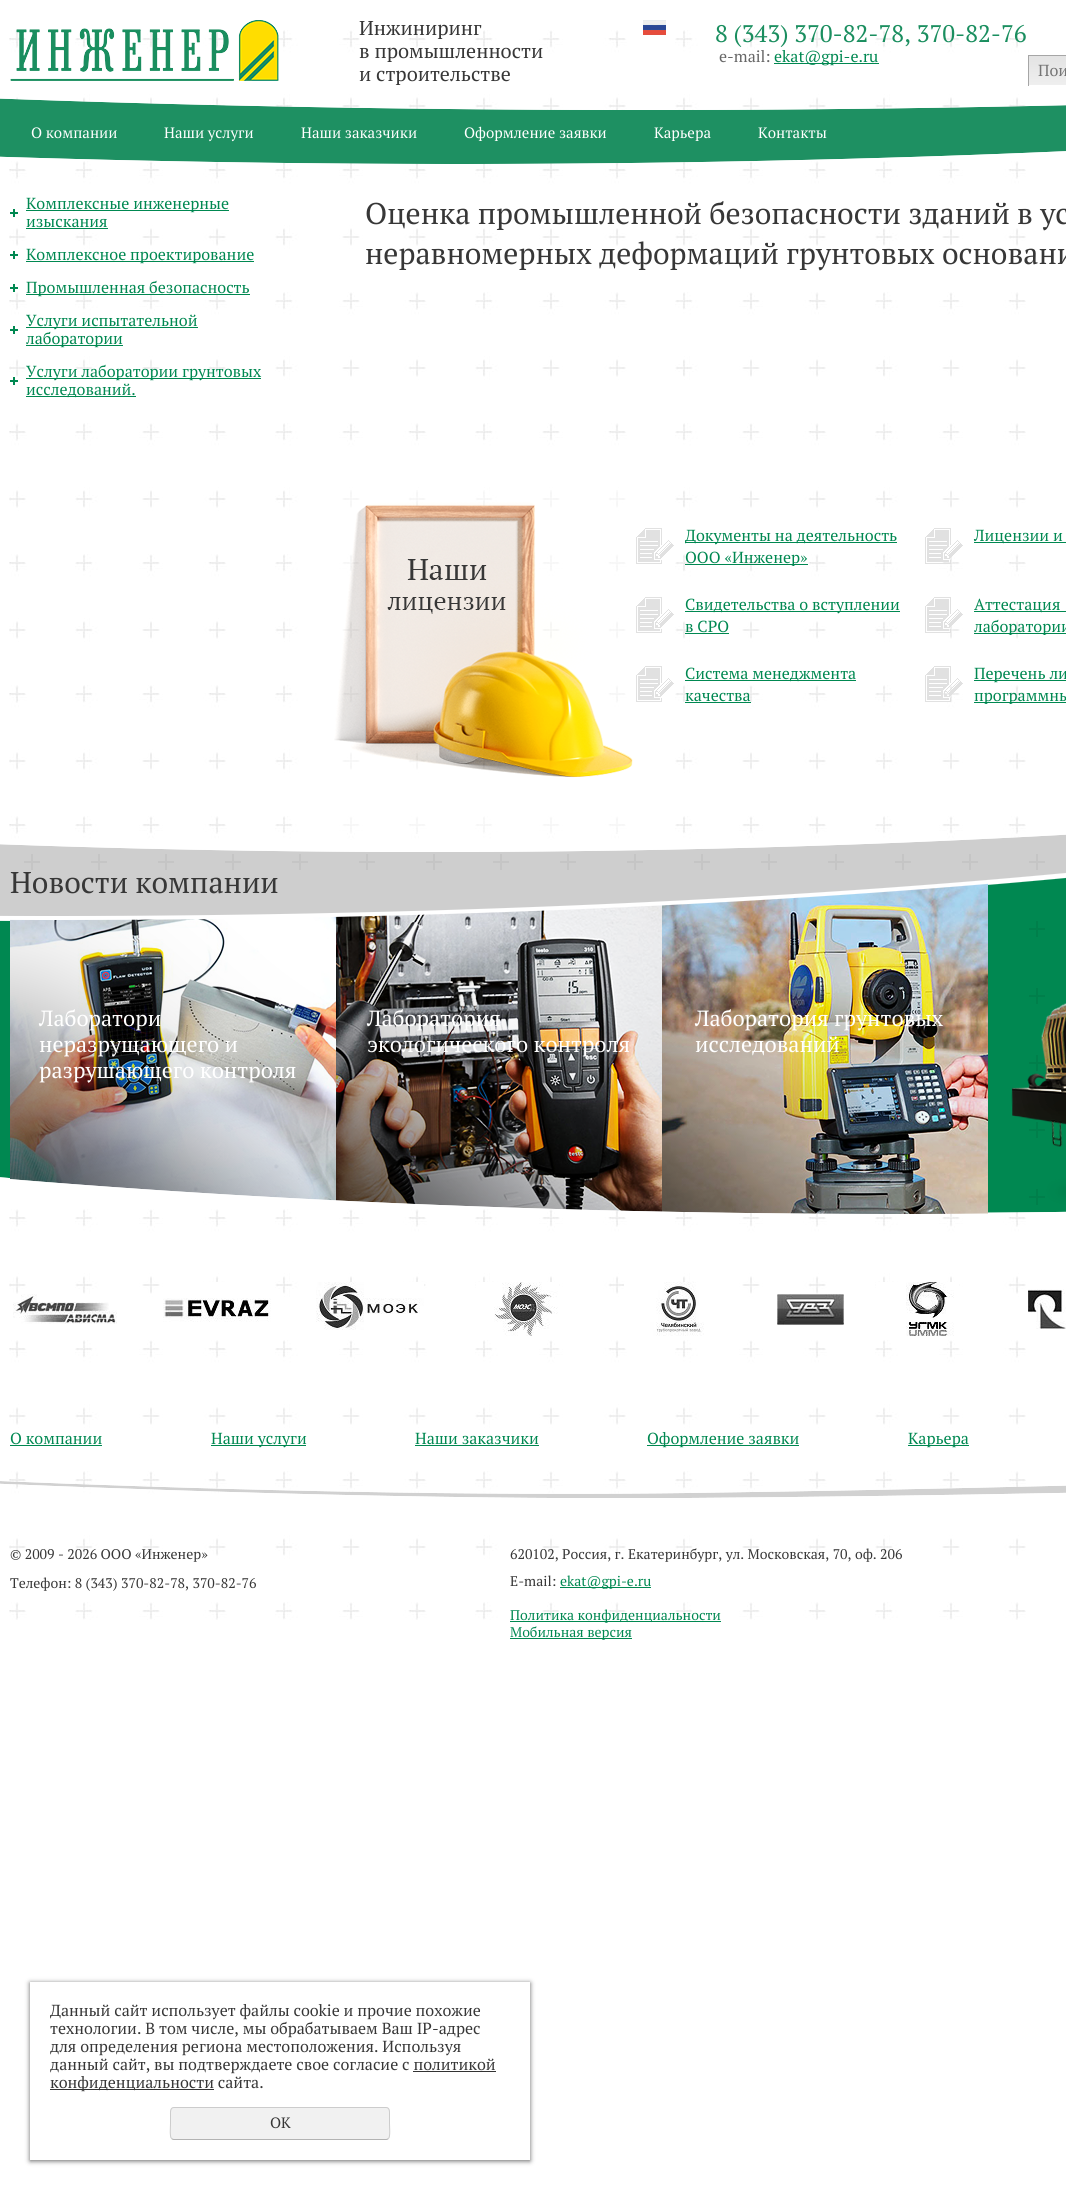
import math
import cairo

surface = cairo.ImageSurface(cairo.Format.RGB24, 1066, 2190)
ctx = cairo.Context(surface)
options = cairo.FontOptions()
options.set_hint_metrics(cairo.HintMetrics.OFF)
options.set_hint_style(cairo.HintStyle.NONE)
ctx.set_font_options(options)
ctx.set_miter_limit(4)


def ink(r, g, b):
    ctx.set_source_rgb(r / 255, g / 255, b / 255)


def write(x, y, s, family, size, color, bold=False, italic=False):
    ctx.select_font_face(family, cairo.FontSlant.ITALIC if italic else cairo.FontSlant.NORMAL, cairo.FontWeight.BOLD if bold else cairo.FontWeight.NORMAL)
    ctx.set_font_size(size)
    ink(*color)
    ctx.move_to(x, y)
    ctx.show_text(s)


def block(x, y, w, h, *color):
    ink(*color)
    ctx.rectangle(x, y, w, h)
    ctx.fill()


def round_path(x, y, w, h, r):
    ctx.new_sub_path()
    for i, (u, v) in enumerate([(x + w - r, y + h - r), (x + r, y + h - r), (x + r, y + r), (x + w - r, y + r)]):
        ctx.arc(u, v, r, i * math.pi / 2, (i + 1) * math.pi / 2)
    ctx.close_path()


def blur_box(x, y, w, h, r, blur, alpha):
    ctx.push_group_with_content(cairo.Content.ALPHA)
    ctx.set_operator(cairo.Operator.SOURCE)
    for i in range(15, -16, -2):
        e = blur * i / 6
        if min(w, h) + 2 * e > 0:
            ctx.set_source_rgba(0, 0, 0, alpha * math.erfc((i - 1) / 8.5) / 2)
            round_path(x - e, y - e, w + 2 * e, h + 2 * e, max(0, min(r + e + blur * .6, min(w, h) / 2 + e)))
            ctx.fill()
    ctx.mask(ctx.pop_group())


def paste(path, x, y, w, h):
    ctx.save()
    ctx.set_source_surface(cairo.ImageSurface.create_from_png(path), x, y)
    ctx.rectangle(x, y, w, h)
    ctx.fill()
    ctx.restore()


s1 = dict(family="PT Serif", size=20, color=(55, 55, 55))
s2 = dict(family="PT Serif", size=24, color=(26, 142, 95))
s3 = dict(family="PT Serif", size=16, color=(102, 102, 102))
s4 = dict(family="PT Serif", size=16, color=(0, 136, 81))
s5 = dict(family="PT Serif", size=16, color=(117, 117, 117))
s6 = dict(family="PT Serif", size=15, color=(255, 255, 255))
s7 = dict(family="PT Serif", size=30, color=(55, 55, 55))
s8 = dict(family="PT Serif", size=22, color=(255, 255, 255))
s9 = dict(family="PT Serif", size=14, color=(55, 55, 55))
s10 = dict(family="PT Serif", size=14, color=(0, 136, 81))
s11 = dict(family="PT Serif", size=16, color=(55, 55, 55))
s12 = dict(family="PT Serif", size=15, color=(55, 55, 55))

ink(255, 255, 255)
ctx.paint()
paste("pic1.png", 9, 30, 1017, 1590)
paste("pic2.png", 10, 20, 269, 61)
write(359, 35, "Инжиниринг", **s1)
write(359, 58, "в промышленности", **s1)
write(359, 81, "и строительстве", **s1)
paste("pic3.png", 643, 20, 23, 15)
write(715, 42, "8 (343) 370-82-78, 370-82-76", **s2)
write(719, 62, "e-mail:", **s3)
block(774, 63, 105, 1, 0, 136, 81)
write(774, 62, "ekat@gpi-e.ru", **s4)
gradient = cairo.LinearGradient(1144, 56, 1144, 85)
gradient.add_color_stop_rgba(0, 0.89, 0.89, 0.89, 1)
gradient.add_color_stop_rgba(1, 0.937, 0.937, 0.937, 1)
ctx.set_source(gradient)
ctx.rectangle(1029, 56, 37, 29)
ctx.fill()
block(1028, 55, 38, 1, 166, 166, 166)
block(1028, 55, 1, 31, 166, 166, 166)
write(1038, 76, "Пои", **s5)
paste("pic4.png", 0, 98, 1066, 66)
write(31, 138, "О компании", **s6)
write(164, 138, "Наши услуги", **s6)
write(301, 138, "Наши заказчики", **s6)
write(464, 138, "Оформление заявки", **s6)
write(654, 138, "Карьера", **s6)
write(758, 138, "Контакты", **s6)
paste("pic5.png", 10, 209, 8, 8)
block(26, 210, 203, 1, 0, 136, 81)
write(26, 209, "Комплексные инженерные", **s4)
write(26, 227, "изыскания", **s4)
block(26, 228, 82, 1, 0, 136, 81)
paste("pic5.png", 10, 251, 8, 8)
block(26, 261, 228, 1, 0, 136, 81)
write(26, 260, "Комплексное проектирование", **s4)
paste("pic5.png", 10, 284, 8, 8)
block(26, 294, 224, 1, 0, 136, 81)
write(26, 293, "Промышленная безопасность", **s4)
paste("pic5.png", 10, 326, 8, 8)
block(26, 327, 172, 1, 0, 136, 81)
write(26, 326, "Услуги испытательной", **s4)
block(26, 345, 97, 1, 0, 136, 81)
write(26, 344, "лаборатории", **s4)
paste("pic5.png", 10, 377, 8, 8)
block(26, 378, 235, 1, 0, 136, 81)
write(26, 377, "Услуги лаборатории грунтовых", **s4)
block(26, 396, 110, 1, 0, 136, 81)
write(26, 395, "исследований.", **s4)
write(365, 224, "Оценка промышленной безопасности зданий в ус", **s7)
write(365, 264, "неравномерных деформаций грунтовых основани", **s7)
paste("pic6.png", 334, 491, 299, 342)
paste("pic7.png", 636, 528, 38, 36)
block(685, 542, 212, 1, 0, 136, 81)
write(685, 541, "Документы на деятельность", **s4)
block(685, 564, 123, 1, 0, 136, 81)
ctx.save()
ctx.rectangle(635, 526, 289, 40)
ctx.clip()
write(685, 563, "ООО «Инженер»", **s4)
ctx.restore()
paste("pic8.png", 925, 528, 38, 36)
block(974, 542, 92, 1, 0, 136, 81)
write(974, 541, "Лицензии и", **s4)
paste("pic7.png", 636, 597, 38, 36)
block(685, 611, 215, 1, 0, 136, 81)
write(685, 610, "Свидетельства о вступлении", **s4)
write(685, 632, "в СРО", **s4)
block(685, 633, 44, 1, 0, 136, 81)
paste("pic9.png", 925, 597, 38, 36)
block(974, 611, 92, 1, 0, 136, 81)
write(974, 610, "Аттестация", **s4)
block(974, 633, 92, 1, 0, 136, 81)
ctx.save()
ctx.rectangle(924, 595, 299, 40)
ctx.clip()
write(974, 632, "лаборатории", **s4)
ctx.restore()
paste("pic7.png", 636, 666, 38, 36)
block(685, 680, 171, 1, 0, 136, 81)
write(685, 679, "Система менеджмента", **s4)
write(685, 701, "качества", **s4)
block(685, 702, 66, 1, 0, 136, 81)
paste("pic10.png", 925, 666, 38, 36)
block(974, 680, 92, 1, 0, 136, 81)
write(974, 679, "Перечень ли", **s4)
block(974, 702, 92, 1, 0, 136, 81)
ctx.save()
ctx.rectangle(924, 664, 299, 40)
ctx.clip()
write(974, 701, "программны", **s4)
ctx.restore()
paste("pic11.png", 0, 834, 1066, 380)
write(10, 893, "Новости компании", **s7)
write(39, 1026, "Лаборатори", **s8)
write(39, 1052, "неразрущающего и", **s8)
write(39, 1078, "разрушающего контроля", **s8)
write(367, 1026, "Лаборатория", **s8)
write(367, 1052, "экологического контроля", **s8)
write(695, 1026, "Лаборатория грунтовых", **s8)
write(695, 1052, "исследований", **s8)
paste("pic12.png", 13, 1294, 104, 30)
paste("pic13.png", 163, 1282, 108, 40)
paste("pic14.png", 316, 1282, 108, 48)
paste("pic15.png", 476, 1282, 83, 54)
paste("pic16.png", 624, 1282, 80, 54)
paste("pic17.png", 777, 1294, 67, 31)
paste("pic18.png", 876, 1282, 83, 54)
paste("pic19.png", 1028, 1289, 38, 40)
write(10, 1444, "О компании", **s4)
block(10, 1445, 92, 1, 0, 136, 81)
block(211, 1445, 95, 1, 0, 136, 81)
write(211, 1444, "Наши услуги", **s4)
write(415, 1444, "Наши заказчики", **s4)
block(415, 1445, 124, 1, 0, 136, 81)
block(647, 1445, 152, 1, 0, 136, 81)
write(647, 1444, "Оформление заявки", **s4)
block(908, 1445, 61, 1, 0, 136, 81)
write(908, 1444, "Карьера", **s4)
paste("pic20.png", 0, 1481, 1066, 17)
write(10, 1559, "© 2009 - 2026 OOO «Инженер»", **s9)
write(10, 1588, "Телефон: 8 (343) 370-82-78, 370-82-76", **s9)
write(510, 1559, "620102, Россия, г. Екатеринбург, ул. Московская, 70, оф. 206", **s9)
write(510, 1586, "E-mail:", **s9)
block(560, 1587, 91, 1, 0, 136, 81)
write(560, 1586, "ekat@gpi-e.ru", **s10)
block(510, 1621, 211, 1, 0, 136, 81)
write(510, 1620, "Политика конфиденциальности", **s10)
block(510, 1638, 122, 1, 0, 136, 81)
write(510, 1637, "Мобильная версия", **s10)
ctx.save()
ctx.set_fill_rule(cairo.FillRule.EVEN_ODD)
ctx.new_path()
ctx.move_to(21, 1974)
ctx.line_to(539, 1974)
ctx.line_to(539, 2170)
ctx.line_to(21, 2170)
ctx.close_path()
ctx.move_to(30, 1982)
ctx.line_to(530, 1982)
ctx.line_to(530, 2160)
ctx.line_to(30, 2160)
ctx.close_path()
ctx.clip()
ink(102, 102, 102)
blur_box(30, 1983, 500, 178, 0, 2.5, 1)
ctx.restore()
write(50, 2016, "Данный сайт использует файлы cookie и прочие похожие", **s11)
write(50, 2034, "технологии. В том числе, мы обрабатываем Ваш IP-адрес", **s11)
write(50, 2052, "для определения региона местоположения. Используя", **s11)
write(50, 2070, "данный сайт, вы подтверждаете свое согласие с политикой", **s11)
block(50, 2089, 164, 1, 51, 51, 51)
write(50, 2088, "конфиденциальности сайта.", **s11)
block(413, 2071, 83, 1, 51, 51, 51)
ink(241, 241, 241)
round_path(170, 2107, 220, 33, 4)
ctx.fill()
ctx.new_path()
ctx.move_to(388.5, 2138.5)
ctx.curve_to(388, 2139, 387, 2139.5, 386, 2139.5)
ctx.line_to(174, 2139.5)
ctx.curve_to(173, 2139.5, 172, 2139, 171.5, 2138.5)
ink(179, 179, 179)
ctx.set_line_width(1)
ctx.stroke()
ctx.new_path()
ctx.move_to(171.5, 2138.5)
ctx.curve_to(169.5, 2136.5, 170.5, 2126.5, 170.5, 2123.5)
ctx.line_to(170.5, 2115)
ctx.curve_to(170.5, 2112.5, 170, 2107.5, 174, 2107.5)
ctx.line_to(386, 2107.5)
ctx.curve_to(390, 2107.5, 389.5, 2112.5, 389.5, 2115)
ctx.line_to(389.5, 2123.5)
ctx.curve_to(389.5, 2126.5, 390.5, 2136.5, 388.5, 2138.5)
ink(204, 204, 204)
ctx.stroke()
write(270, 2128, "OK", **s12)
surface.write_to_png("screenshot.png")
